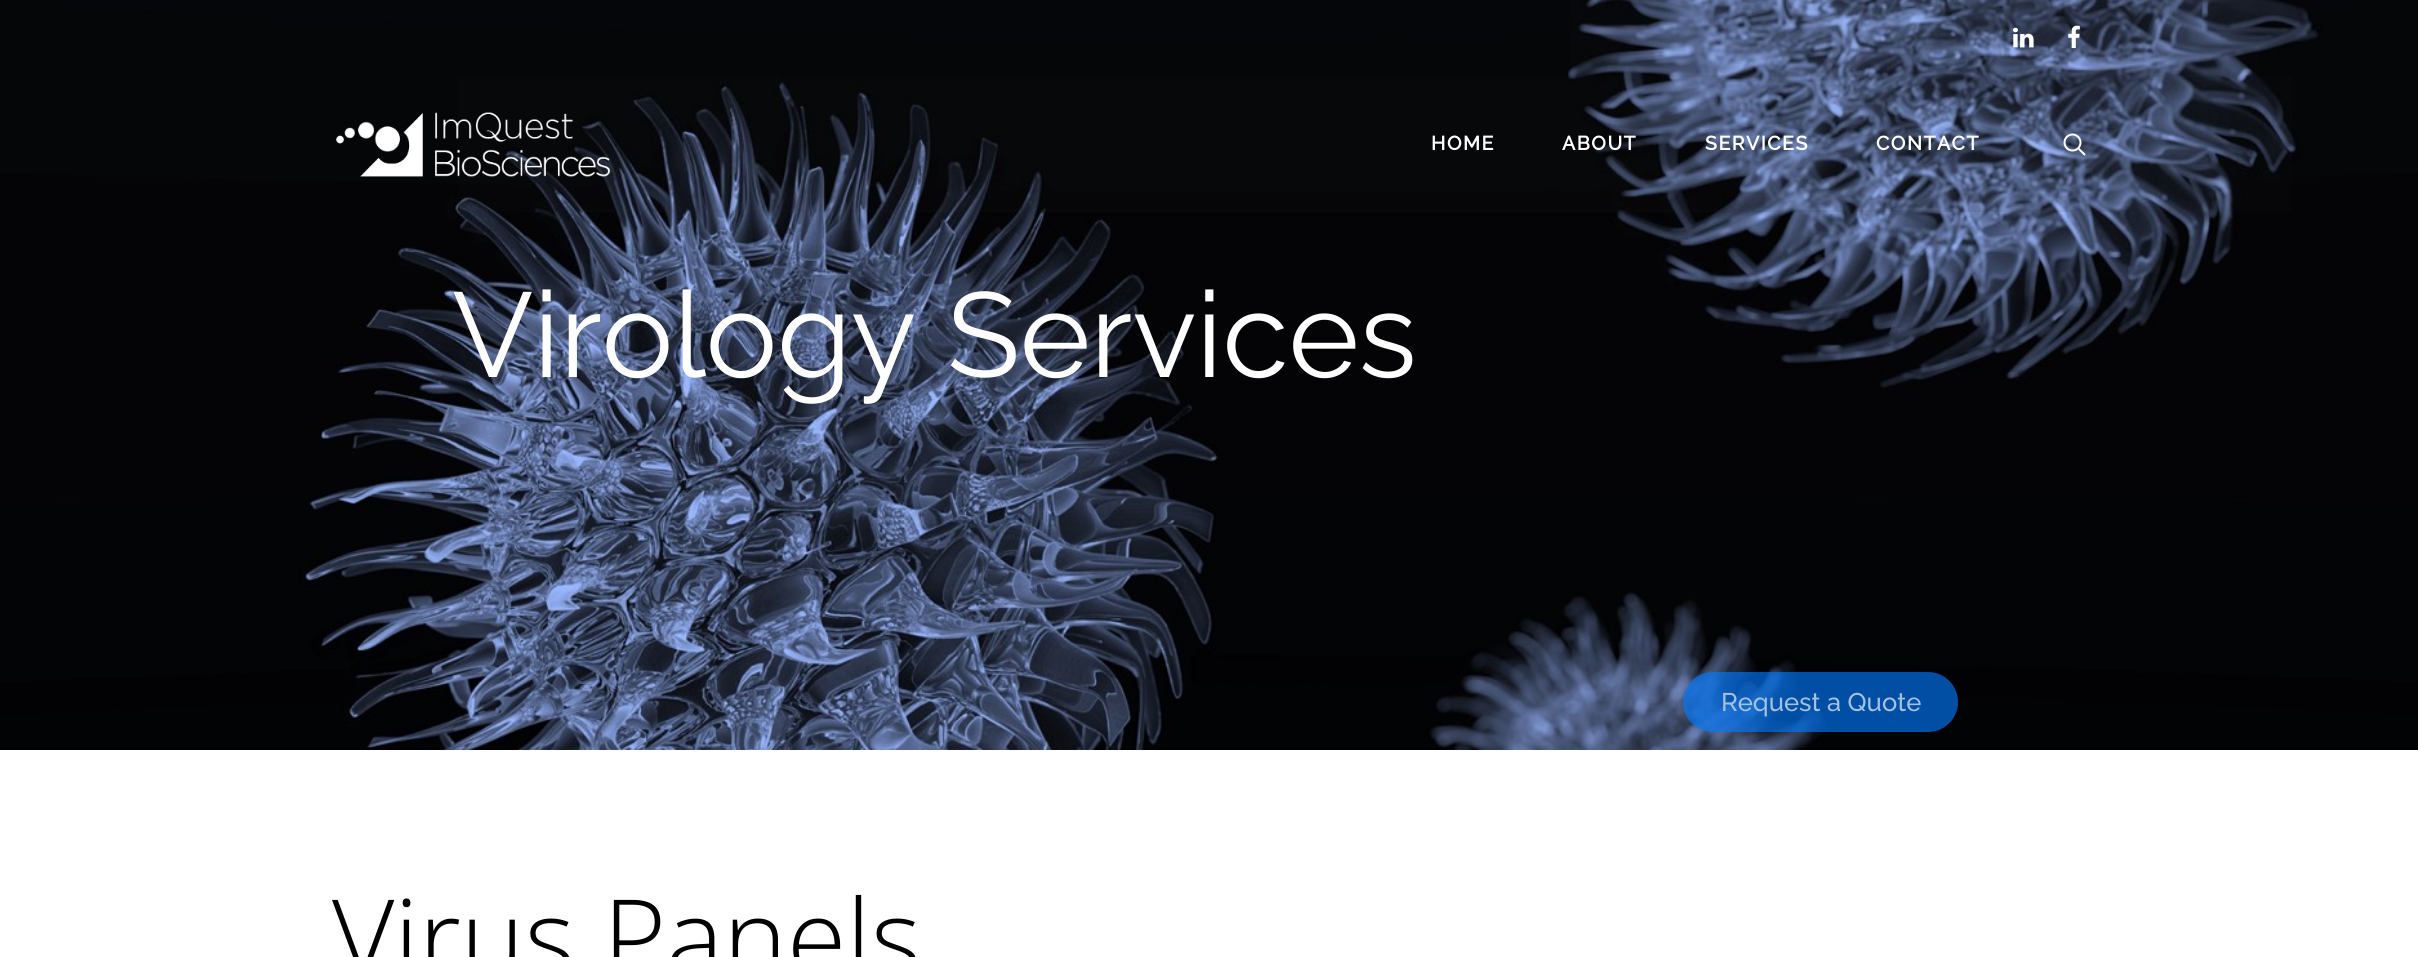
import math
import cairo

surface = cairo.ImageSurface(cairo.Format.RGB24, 2418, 957)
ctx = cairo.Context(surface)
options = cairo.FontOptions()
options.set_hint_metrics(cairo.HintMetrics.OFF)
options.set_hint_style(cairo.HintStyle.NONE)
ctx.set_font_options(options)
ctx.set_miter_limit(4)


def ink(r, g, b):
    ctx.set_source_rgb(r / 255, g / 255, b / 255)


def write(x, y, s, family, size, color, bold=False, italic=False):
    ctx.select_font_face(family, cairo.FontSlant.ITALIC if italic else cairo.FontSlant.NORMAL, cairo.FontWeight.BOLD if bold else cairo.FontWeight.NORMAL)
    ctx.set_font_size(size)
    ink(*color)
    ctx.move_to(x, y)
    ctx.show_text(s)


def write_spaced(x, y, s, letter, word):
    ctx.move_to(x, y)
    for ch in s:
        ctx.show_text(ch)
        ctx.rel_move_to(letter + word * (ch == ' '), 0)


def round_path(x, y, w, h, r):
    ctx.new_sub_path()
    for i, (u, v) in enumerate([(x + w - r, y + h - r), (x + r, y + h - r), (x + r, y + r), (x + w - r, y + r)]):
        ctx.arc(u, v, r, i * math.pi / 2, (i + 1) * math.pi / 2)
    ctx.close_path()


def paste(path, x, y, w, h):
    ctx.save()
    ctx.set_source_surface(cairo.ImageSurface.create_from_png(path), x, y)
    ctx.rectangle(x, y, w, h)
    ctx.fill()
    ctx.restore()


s1 = dict(family="Raleway", size=120, color=(255, 255, 255))
s2 = dict(family="Raleway Medium", size=25.5, color=(164, 193, 225))
s3 = dict(family="Open Sans Light", size=108, color=(0, 0, 0))

ink(255, 255, 255)
ctx.paint()
paste("pic5.png", 0, 0, 2418, 750)
ctx.set_source_rgba(0.165, 0.176, 0.18, 0.05)
ctx.rectangle(1571, 0, 688, 77)
ctx.fill()
ctx.rectangle(1670, 75, 577, 2)
ctx.fill()
paste("pic1.png", 2013, 27, 21, 21)
paste("pic2.png", 2068, 25, 12, 23)
ctx.rectangle(457, 77, 1835, 135)
ctx.fill()
ctx.rectangle(568, 210, 1661, 2)
ctx.fill()
paste("pic3.png", 336, 112, 275, 65)
ctx.select_font_face("Raleway", cairo.FontSlant.NORMAL, cairo.FontWeight.BOLD)
ctx.set_font_size(19.5)
ink(255, 255, 255)
write_spaced(1431, 150, "HOME", 1.5, 0)
write_spaced(1562, 150, "ABOUT", 1.5, 0)
write_spaced(1705, 150, "SERVICES", 1.5, 0)
write_spaced(1876, 150, "CONTACT", 1.5, 0)
paste("pic4.png", 2063, 133, 23, 23)
write(452, 377, "Virology Services", **s1)
ctx.set_source_rgba(0, 0.478, 1, 0.64)
round_path(1683, 672, 275, 60, 30)
ctx.fill()
write(1721, 711, "Request a Quote", **s2)
write(332, 977, "Virus Panels", **s3)
surface.write_to_png("screenshot.png")
